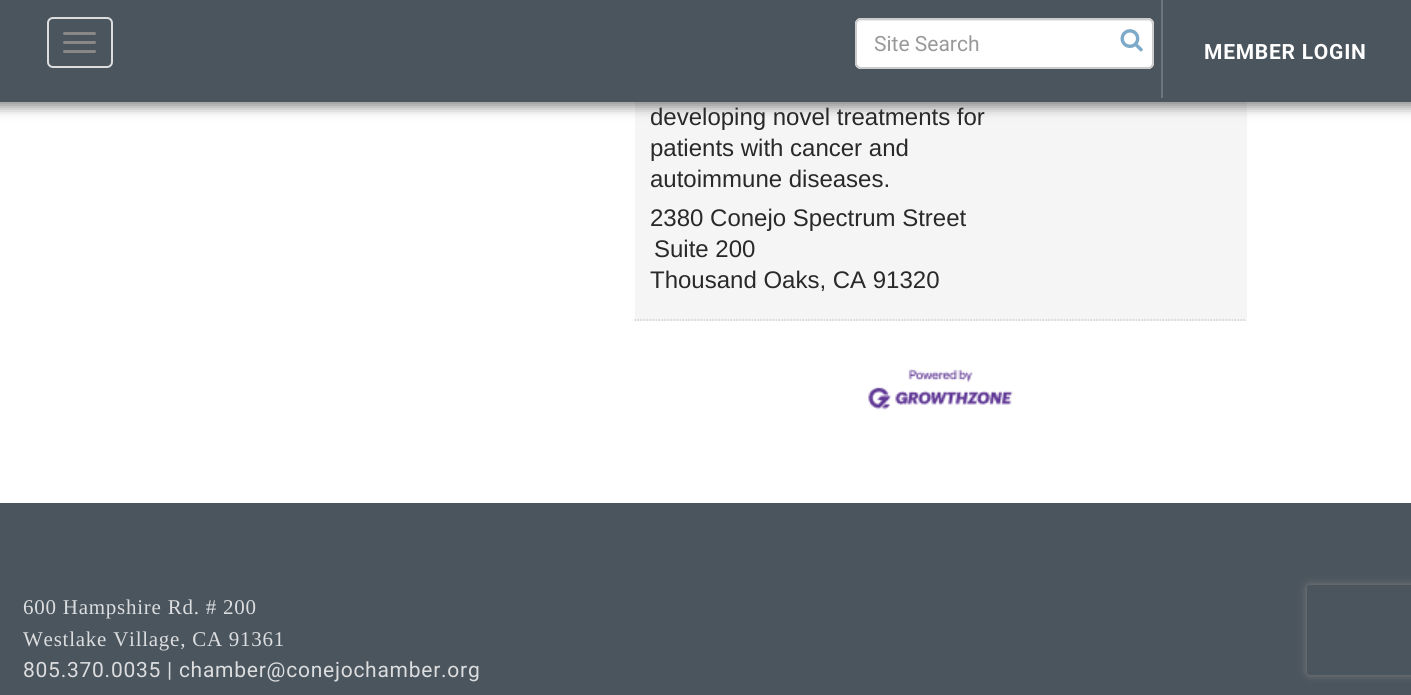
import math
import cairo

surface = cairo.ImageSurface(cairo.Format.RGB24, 1411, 695)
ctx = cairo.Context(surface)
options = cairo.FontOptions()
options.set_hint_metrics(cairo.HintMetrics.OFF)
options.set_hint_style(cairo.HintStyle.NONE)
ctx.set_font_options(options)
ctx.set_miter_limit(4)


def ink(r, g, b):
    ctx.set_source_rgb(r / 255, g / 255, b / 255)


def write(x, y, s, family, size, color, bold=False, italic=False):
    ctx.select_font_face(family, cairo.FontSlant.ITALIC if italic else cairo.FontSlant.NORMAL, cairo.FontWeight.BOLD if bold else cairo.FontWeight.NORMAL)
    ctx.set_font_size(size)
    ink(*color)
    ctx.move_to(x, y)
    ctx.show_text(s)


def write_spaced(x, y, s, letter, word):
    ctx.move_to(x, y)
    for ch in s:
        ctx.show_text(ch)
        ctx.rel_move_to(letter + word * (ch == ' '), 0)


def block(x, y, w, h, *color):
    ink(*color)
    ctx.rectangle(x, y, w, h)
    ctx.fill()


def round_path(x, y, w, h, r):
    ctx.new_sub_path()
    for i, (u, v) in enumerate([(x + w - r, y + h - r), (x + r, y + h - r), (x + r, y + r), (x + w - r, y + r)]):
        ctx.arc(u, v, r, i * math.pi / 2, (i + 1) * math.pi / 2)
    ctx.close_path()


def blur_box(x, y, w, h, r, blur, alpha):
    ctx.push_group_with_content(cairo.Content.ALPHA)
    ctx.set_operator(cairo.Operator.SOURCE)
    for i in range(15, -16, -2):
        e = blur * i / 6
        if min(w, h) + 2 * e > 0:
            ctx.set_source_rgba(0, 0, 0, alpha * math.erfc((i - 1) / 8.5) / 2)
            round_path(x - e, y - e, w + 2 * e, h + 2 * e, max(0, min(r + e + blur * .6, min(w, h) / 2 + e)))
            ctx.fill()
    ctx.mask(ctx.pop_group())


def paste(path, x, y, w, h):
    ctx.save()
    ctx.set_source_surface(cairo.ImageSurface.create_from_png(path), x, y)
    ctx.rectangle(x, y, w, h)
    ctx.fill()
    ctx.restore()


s1 = dict(family="Roboto", size=21, color=(153, 153, 153))
s2 = dict(family="Liberation Sans", size=24, color=(41, 41, 41))

ink(255, 255, 255)
ctx.paint()
block(635, 102, 612, 219, 245, 245, 245)
ink(0, 0, 0)
blur_box(-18, 5, 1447, 102, 0, 6, 0.46)
block(0, 0, 1411, 102, 75, 85, 94)
round_path(48, 18, 64, 49, 5)
ink(221, 221, 221)
ctx.stroke()
ink(136, 136, 136)
round_path(63, 32, 33, 3, 1.5)
ctx.fill()
round_path(63, 41, 33, 3, 1.5)
ctx.fill()
round_path(63, 50, 33, 3, 1.5)
ctx.fill()
ink(255, 255, 255)
round_path(855, 18, 299, 51, 6)
ctx.fill()
ink(236, 236, 236)
ctx.new_path()
ctx.move_to(861, 21)
ctx.line_to(1148, 21)
ctx.line_to(1151, 22)
ctx.line_to(1152, 26)
ctx.line_to(1152, 25)
ctx.curve_to(1152, 22, 1150, 20, 1147, 20)
ctx.line_to(862, 20)
ctx.curve_to(860, 20, 859, 21, 858, 22)
ctx.close_path()
ctx.fill()
round_path(856, 19, 297, 49, 5)
ink(204, 204, 204)
ctx.stroke()
write(874, 51, "Site Search", **s1)
paste("pic1.png", 1120, 29, 23, 23)
block(1161, 0, 2, 98, 109, 117, 125)
ctx.select_font_face("Roboto", cairo.FontSlant.NORMAL, cairo.FontWeight.BOLD)
ink(255, 255, 255)
write_spaced(1204, 59, "MEMBER LOGIN", 0.75, 0)
ctx.new_path()
ctx.move_to(634.5, 320)
ctx.line_to(1246.5, 320)
ink(204, 204, 204)
ctx.set_line_width(1.5)
ctx.set_dash([1.5, 1.5])
ctx.stroke()
write(650, 125, "developing novel treatments for", **s2)
write(650, 156, "patients with cancer and", **s2)
write(650, 187, "autoimmune diseases.", **s2)
write(650, 226, "2380 Conejo Spectrum Street", **s2)
write(654, 257, "Suite 200", **s2)
write(650, 288, "Thousand Oaks, CA 91320", **s2)
paste("pic2.png", 868, 369, 145, 41)
block(0, 503, 1411, 192, 75, 85, 94)
ctx.select_font_face("Liberation Serif")
ctx.set_font_size(21)
ink(219, 221, 223)
write_spaced(23, 614, "600 Hampshire Rd. # 200", 0.75, 0)
write_spaced(23, 646, "Westlake Village, CA 91361", 0.75, 0)
ctx.select_font_face("Roboto")
write_spaced(23, 677, "805.370.0035 | chamber@conejochamber.org", 0.75, 0)
ctx.save()
ctx.set_fill_rule(cairo.FillRule.EVEN_ODD)
ctx.new_path()
ctx.move_to(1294, 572)
ctx.line_to(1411, 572)
ctx.line_to(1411, 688)
ctx.line_to(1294, 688)
ctx.close_path()
ctx.move_to(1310, 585)
ctx.line_to(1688, 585)
ctx.curve_to(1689.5, 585, 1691, 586.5, 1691, 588)
ctx.line_to(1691, 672)
ctx.curve_to(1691, 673.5, 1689.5, 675, 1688, 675)
ctx.line_to(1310, 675)
ctx.curve_to(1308.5, 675, 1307, 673.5, 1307, 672)
ctx.line_to(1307, 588)
ctx.curve_to(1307, 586.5, 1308.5, 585, 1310, 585)
ctx.close_path()
ctx.clip()
ink(128, 128, 128)
blur_box(1307, 585, 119, 90, 3, 4, 1)
ctx.restore()
surface.write_to_png("screenshot.png")
